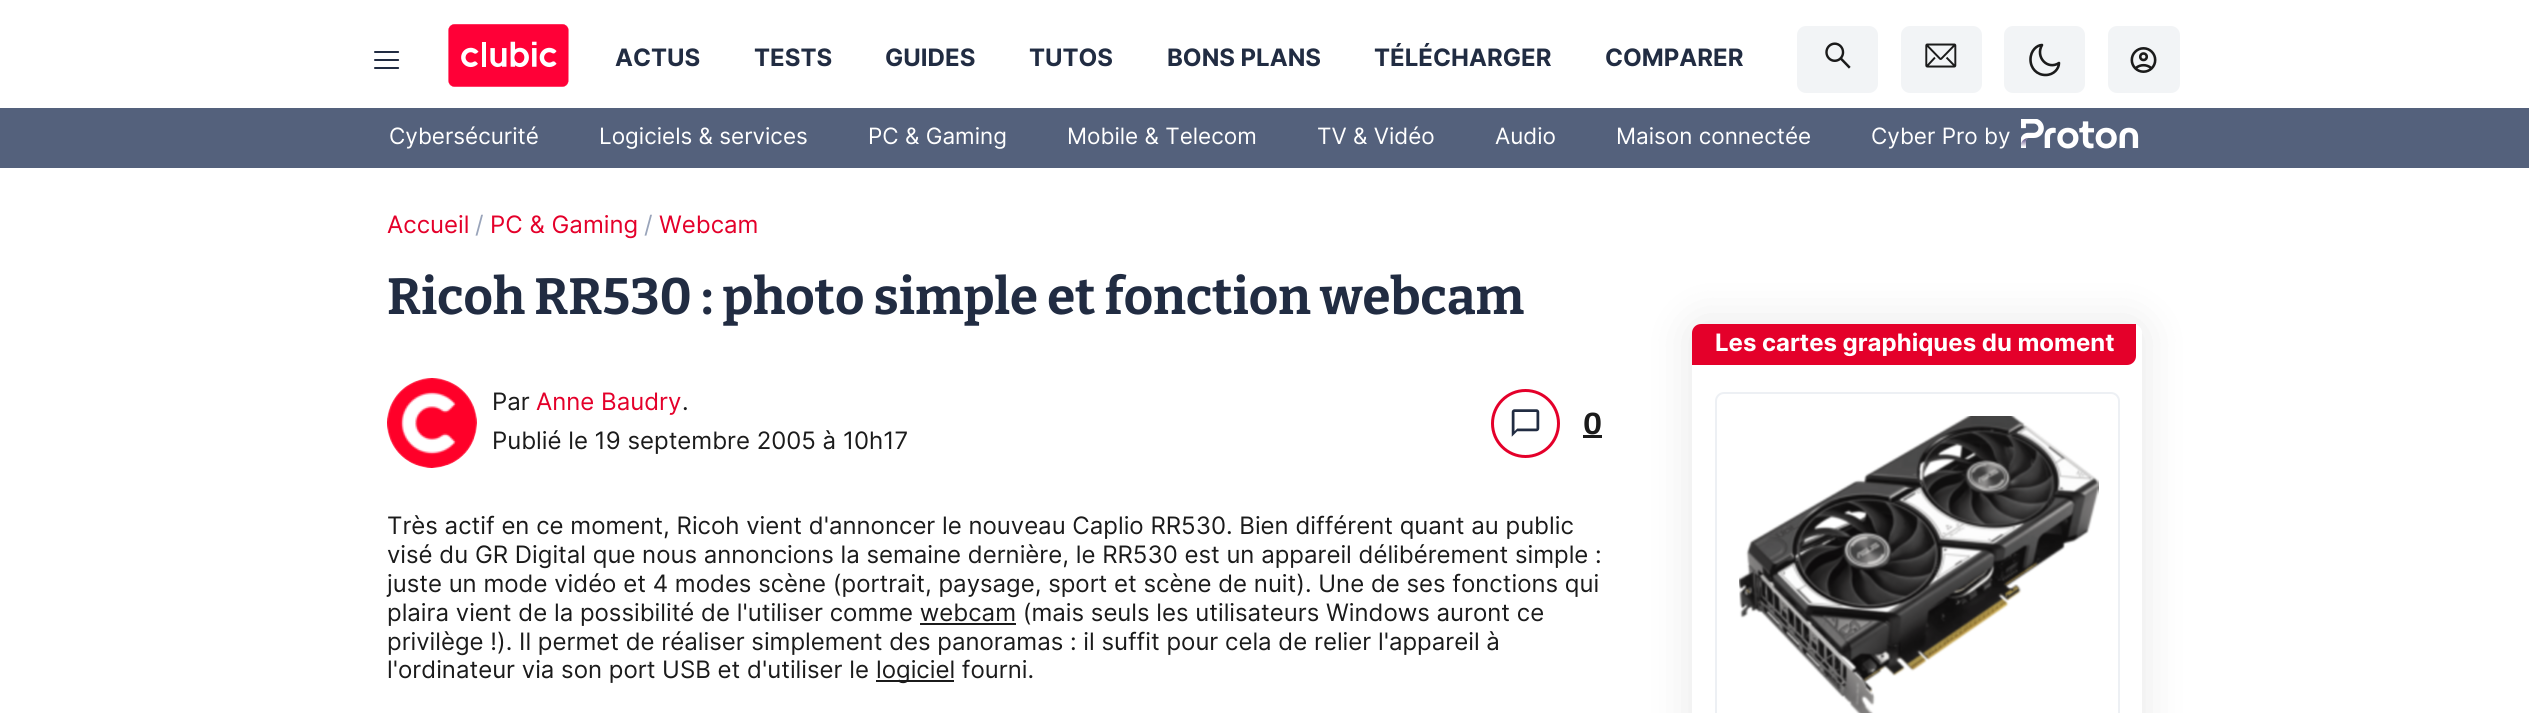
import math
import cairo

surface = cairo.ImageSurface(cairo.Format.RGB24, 2529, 713)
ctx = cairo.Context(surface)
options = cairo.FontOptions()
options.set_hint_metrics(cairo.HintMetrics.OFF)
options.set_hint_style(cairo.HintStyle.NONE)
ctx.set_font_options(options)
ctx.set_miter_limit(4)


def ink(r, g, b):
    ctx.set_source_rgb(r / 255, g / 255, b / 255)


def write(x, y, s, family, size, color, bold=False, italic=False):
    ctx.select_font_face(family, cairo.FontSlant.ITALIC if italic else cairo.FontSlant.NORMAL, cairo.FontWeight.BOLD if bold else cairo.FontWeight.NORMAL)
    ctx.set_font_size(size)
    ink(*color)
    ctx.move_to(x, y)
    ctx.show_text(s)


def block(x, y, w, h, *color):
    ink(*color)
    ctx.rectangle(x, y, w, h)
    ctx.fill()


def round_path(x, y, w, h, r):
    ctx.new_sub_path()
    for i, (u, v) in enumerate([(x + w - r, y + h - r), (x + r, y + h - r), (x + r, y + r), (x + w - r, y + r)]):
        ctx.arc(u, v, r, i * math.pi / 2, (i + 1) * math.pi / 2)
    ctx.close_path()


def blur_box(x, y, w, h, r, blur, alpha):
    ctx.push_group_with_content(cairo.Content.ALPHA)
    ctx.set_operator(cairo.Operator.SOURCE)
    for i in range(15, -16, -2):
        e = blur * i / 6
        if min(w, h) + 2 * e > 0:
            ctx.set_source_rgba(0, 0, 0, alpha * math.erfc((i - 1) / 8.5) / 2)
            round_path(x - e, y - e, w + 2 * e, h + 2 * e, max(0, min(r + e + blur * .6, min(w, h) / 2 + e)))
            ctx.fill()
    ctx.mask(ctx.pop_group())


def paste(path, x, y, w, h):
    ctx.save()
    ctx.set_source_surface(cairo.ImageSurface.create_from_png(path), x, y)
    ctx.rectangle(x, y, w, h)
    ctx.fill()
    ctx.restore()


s1 = dict(family="Inter", size=24, color=(33, 44, 66), bold=True)
s2 = dict(family="Inter", size=22.5, color=(255, 255, 255))
s3 = dict(family="Inter", size=24, color=(228, 0, 42))
s4 = dict(family="Inter", size=24, color=(153, 164, 186))
s5 = dict(family="Bitter Thin", size=51, color=(33, 44, 66))
s6 = dict(family="Inter", size=24, color=(27, 27, 27))
s7 = dict(family="Bitter Thin", size=30, color=(27, 27, 27))
s8 = dict(family="Inter", size=24, color=(255, 255, 255), bold=True)

ink(255, 255, 255)
ctx.paint()
paste("pic1.png", 448, 24, 121, 63)
ink(242, 244, 246)
round_path(1797, 26, 81, 67, 9)
ctx.fill()
paste("pic2.png", 1825, 42, 26, 27)
round_path(1901, 26, 81, 67, 9)
ctx.fill()
paste("pic3.png", 1925, 43, 32, 25)
round_path(2004, 26, 81, 67, 9)
ctx.fill()
ctx.new_path()
ctx.move_to(2042, 45)
ctx.curve_to(2037, 45, 2030.5, 50.5, 2030.5, 59.5)
ctx.curve_to(2030.5, 68.5, 2037, 75, 2045.5, 75)
ctx.curve_to(2054, 75, 2059, 68.5, 2059, 63)
ctx.curve_to(2047.5, 70.5, 2035, 57, 2042, 45)
ctx.close_path()
ink(27, 27, 27)
ctx.set_line_width(2.6)
ctx.set_line_cap(cairo.LineCap.ROUND)
ctx.set_line_join(cairo.LineJoin.ROUND)
ctx.stroke()
ink(242, 244, 246)
round_path(2108, 26, 72, 67, 9)
ctx.fill()
paste("pic4.png", 2130, 47, 27, 26)
paste("pic5.png", 374, 51, 26, 18)
write(615, 66, "ACTUS", **s1)
write(754, 66, "TESTS", **s1)
write(885, 66, "GUIDES", **s1)
write(1029, 66, "TUTOS", **s1)
write(1167, 66, "BONS PLANS", **s1)
write(1374, 66, "TÉLÉCHARGER", **s1)
write(1605, 66, "COMPARER", **s1)
block(0, 108, 2529, 60, 84, 97, 124)
write(389, 144, "Cybersécurité", **s2)
write(599, 144, "Logiciels & services", **s2)
write(868, 144, "PC & Gaming", **s2)
write(1067, 144, "Mobile & Telecom", **s2)
write(1317, 144, "TV & Vidéo", **s2)
write(1495, 144, "Audio", **s2)
write(1616, 144, "Maison connectée", **s2)
write(1871, 144, "Cyber Pro by", **s2)
paste("pic6.png", 2021, 119, 118, 30)
write(387, 233, "Accueil", **s3)
write(475, 233, "/", **s4)
write(490, 233, "PC & Gaming", **s3)
write(644, 233, "/", **s4)
write(659, 233, "Webcam", **s3)
write(387, 314, "Ricoh RR530 : photo simple et fonction webcam", **s5)
paste("pic7.png", 387, 378, 90, 90)
write(492, 410, "Par", **s6)
write(536, 410, "Anne Baudry", **s3)
write(682, 410, ".", **s6)
write(492, 449, "Publié le 19 septembre 2005 à 10h17", **s6)
ctx.new_path()
ctx.arc(1525.5, 423.5, 33, 0, 2 * math.pi)
ink(228, 0, 42)
ctx.set_line_width(3)
ctx.set_line_cap(cairo.LineCap.BUTT)
ctx.set_line_join(cairo.LineJoin.MITER)
ctx.stroke()
paste("pic8.png", 1511, 409, 29, 28)
write(1583, 434, "0", **s7)
block(1583, 435, 19, 3, 27, 27, 27)
write(387, 534, "Très actif en ce moment, Ricoh vient d'annoncer le nouveau Caplio RR530. Bien différent quant au public", **s6)
write(387, 563, "visé du GR Digital que nous annoncions la semaine dernière, le RR530 est un appareil délibérement simple :", **s6)
write(387, 592, "juste un mode vidéo et 4 modes scène (portrait, paysage, sport et scène de nuit). Une de ses fonctions qui", **s6)
write(387, 621, "plaira vient de la possibilité de l'utiliser comme webcam (mais seuls les utilisateurs Windows auront ce", **s6)
block(920, 623, 96, 2, 27, 27, 27)
write(387, 650, "privilège !). Il permet de réaliser simplement des panoramas : il suffit pour cela de relier l'appareil à", **s6)
write(387, 678, "l'ordinateur via son port USB et d'utiliser le", **s6)
block(876, 680, 78, 2, 27, 27, 27)
write(876, 678, "logiciel fourni.", **s6)
ctx.save()
ctx.set_fill_rule(cairo.FillRule.EVEN_ODD)
ctx.new_path()
ctx.move_to(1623, 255)
ctx.line_to(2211, 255)
ctx.line_to(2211, 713)
ctx.line_to(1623, 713)
ctx.close_path()
ctx.move_to(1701, 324)
ctx.line_to(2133, 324)
ctx.curve_to(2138, 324, 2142, 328, 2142, 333)
ctx.line_to(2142, 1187)
ctx.curve_to(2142, 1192, 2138, 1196, 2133, 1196)
ctx.line_to(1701, 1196)
ctx.curve_to(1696, 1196, 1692, 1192, 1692, 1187)
ctx.line_to(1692, 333)
ctx.curve_to(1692, 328, 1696, 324, 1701, 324)
ctx.close_path()
ctx.clip()
ink(0, 0, 0)
blur_box(1692, 324, 450, 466, 9, 22.5, 0.1)
ctx.restore()
ink(228, 0, 42)
ctx.new_path()
ctx.move_to(1701, 324)
ctx.line_to(2136, 324)
ctx.line_to(2136, 356)
ctx.curve_to(2136, 361, 2132, 365, 2127, 365)
ctx.line_to(1692, 365)
ctx.line_to(1692, 333)
ctx.curve_to(1692, 328, 1696, 324, 1701, 324)
ctx.close_path()
ctx.fill()
write(1715, 351, "Les cartes graphiques du moment", **s8)
round_path(1716, 393, 403, 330, 8)
ink(237, 240, 244)
ctx.set_line_width(2)
ctx.stroke()
paste("pic9.png", 1739, 416, 360, 297)
surface.write_to_png("screenshot.png")
